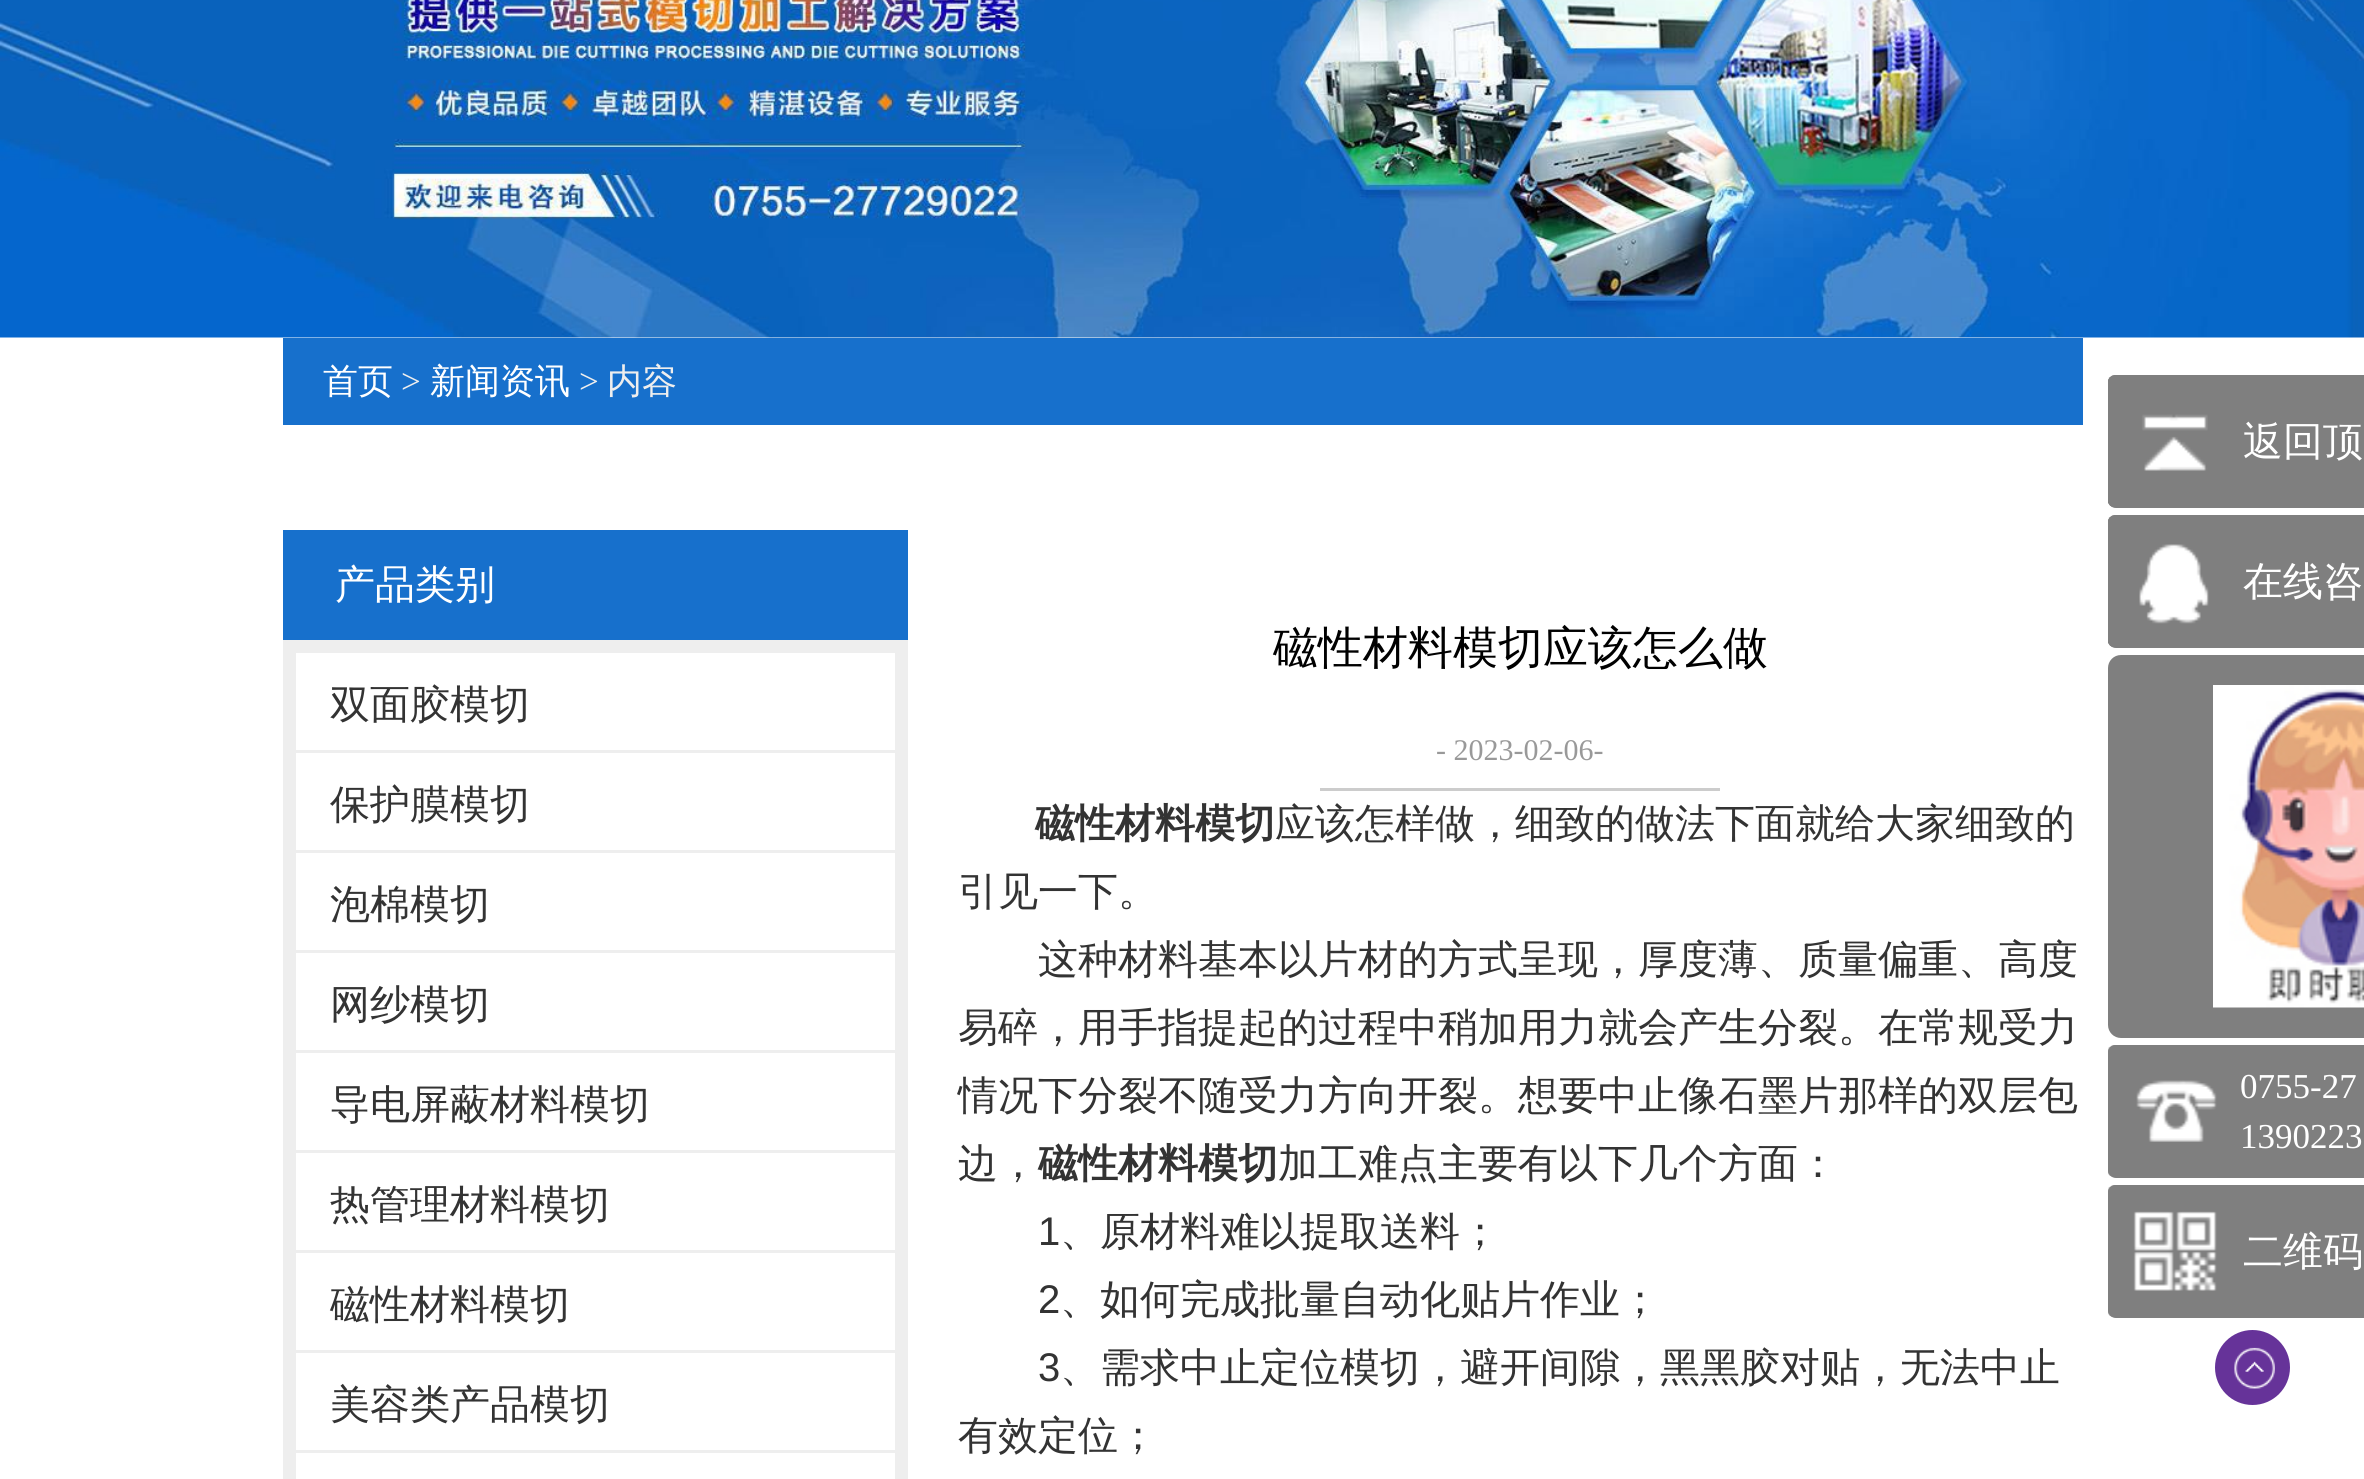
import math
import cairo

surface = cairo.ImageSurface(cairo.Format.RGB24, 2364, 1479)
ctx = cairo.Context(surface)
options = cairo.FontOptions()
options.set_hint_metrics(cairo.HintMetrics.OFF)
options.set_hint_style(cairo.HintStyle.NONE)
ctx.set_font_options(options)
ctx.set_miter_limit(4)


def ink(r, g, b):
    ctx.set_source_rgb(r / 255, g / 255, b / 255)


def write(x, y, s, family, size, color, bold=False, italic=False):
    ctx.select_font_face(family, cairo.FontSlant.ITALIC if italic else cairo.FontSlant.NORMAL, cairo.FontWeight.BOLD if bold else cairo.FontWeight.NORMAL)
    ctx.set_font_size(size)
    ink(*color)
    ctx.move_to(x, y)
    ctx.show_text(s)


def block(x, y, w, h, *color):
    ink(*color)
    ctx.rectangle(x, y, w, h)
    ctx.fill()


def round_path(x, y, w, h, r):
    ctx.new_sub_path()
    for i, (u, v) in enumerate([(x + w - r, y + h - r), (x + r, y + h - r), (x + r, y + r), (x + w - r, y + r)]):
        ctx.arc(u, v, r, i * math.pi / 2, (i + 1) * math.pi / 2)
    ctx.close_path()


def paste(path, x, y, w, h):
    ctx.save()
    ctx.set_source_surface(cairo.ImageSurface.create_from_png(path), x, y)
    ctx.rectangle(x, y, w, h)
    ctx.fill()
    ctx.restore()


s1 = dict(family="WenQuanYi Zen Hei Medium", size=35, color=(255, 255, 255))
s2 = dict(family="Liberation Serif", size=35, color=(238, 238, 238))
s3 = dict(family="WenQuanYi Zen Hei Medium", size=35, color=(238, 238, 238))
s4 = dict(family="WenQuanYi Zen Hei Medium", size=40, color=(255, 255, 255))
s5 = dict(family="WenQuanYi Zen Hei Medium", size=40, color=(51, 51, 51))
s6 = dict(family="WenQuanYi Zen Hei Medium", size=45, color=(0, 0, 0))
s7 = dict(family="Liberation Serif", size=30, color=(153, 153, 153))
s8 = dict(family="WenQuanYi Zen Hei", size=40, color=(51, 51, 51), bold=True)
s9 = dict(family="Liberation Sans", size=40, color=(51, 51, 51))
s10 = dict(family="Liberation Serif", size=35, color=(255, 255, 255))

ink(255, 255, 255)
ctx.paint()
paste("pic1.png", 0, 0, 2364, 338)
block(283, 338, 1800, 87, 23, 112, 204)
write(323, 393, "首页", **s1)
write(401, 393, ">", **s2)
write(430, 393, "新闻资讯", **s1)
write(579, 393, ">", **s2)
write(607, 393, "内容", **s3)
block(283, 530, 625, 110, 23, 112, 204)
write(335, 598, "产品类别", **s4)
ctx.rectangle(289.5, 646.5, 612, 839)
ink(238, 238, 238)
ctx.set_line_width(13)
ctx.stroke()
block(295, 750, 600, 3, 238, 238, 238)
write(330, 718, "双面胶模切", **s5)
block(295, 850, 600, 3, 238, 238, 238)
write(330, 818, "保护膜模切", **s5)
block(295, 950, 600, 3, 238, 238, 238)
write(330, 918, "泡棉模切", **s5)
block(295, 1050, 600, 3, 238, 238, 238)
write(330, 1018, "网纱模切", **s5)
block(295, 1150, 600, 3, 238, 238, 238)
write(330, 1118, "导电屏蔽材料模切", **s5)
block(295, 1250, 600, 3, 238, 238, 238)
write(330, 1218, "热管理材料模切", **s5)
block(295, 1350, 600, 3, 238, 238, 238)
write(330, 1318, "磁性材料模切", **s5)
block(295, 1450, 600, 3, 238, 238, 238)
write(330, 1418, "美容类产品模切", **s5)
write(1273, 663, "磁性材料模切应该怎么做", **s6)
block(1320, 788, 400, 3, 204, 204, 204)
write(1436, 760, "- 2023-02-06-", **s7)
write(1035, 837, "磁性材料模切", **s8)
write(1275, 837, "应该怎样做，细致的做法下面就给大家细致的", **s5)
write(958, 905, "引见一下。", **s5)
write(1038, 973, "这种材料基本以片材的方式呈现，厚度薄、质量偏重、高度", **s5)
write(958, 1041, "易碎，用手指提起的过程中稍加用力就会产生分裂。在常规受力", **s5)
write(958, 1109, "情况下分裂不随受力方向开裂。想要中止像石墨片那样的双层包", **s5)
write(958, 1177, "边，", **s5)
write(1038, 1177, "磁性材料模切", **s8)
write(1278, 1177, "加工难点主要有以下几个方面：", **s5)
write(1038, 1245, "1", **s9)
write(1060, 1245, "、原材料难以提取送料；", **s5)
write(1038, 1313, "2", **s9)
write(1060, 1313, "、如何完成批量自动化贴片作业；", **s5)
write(1038, 1381, "3", **s9)
write(1060, 1381, "、需求中止定位模切，避开间隙，黑黑胶对贴，无法中止", **s5)
write(958, 1449, "有效定位；", **s5)
ink(127, 127, 127)
round_path(2108, 375, 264, 133, 8)
ctx.fill()
paste("pic2.png", 2108, 375, 100, 133)
write(2243, 455, "返回顶", **s4)
ink(127, 127, 127)
round_path(2108, 515, 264, 133, 8)
ctx.fill()
paste("pic3.png", 2108, 515, 101, 133)
write(2243, 595, "在线咨", **s4)
ink(127, 127, 127)
round_path(2108, 655, 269, 383, 13)
ctx.fill()
paste("pic4.png", 2213, 685, 151, 323)
round_path(2108, 1045, 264, 133, 8)
ctx.fill()
paste("pic5.png", 2108, 1045, 109, 132)
write(2240, 1098, "0755-27", **s10)
write(2240, 1148, "1390223", **s10)
ink(127, 127, 127)
round_path(2108, 1185, 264, 133, 8)
ctx.fill()
paste("pic6.png", 2108, 1185, 109, 133)
write(2243, 1265, "二维码", **s4)
ink(102, 51, 153)
ctx.new_path()
ctx.arc(2252.5, 1367.5, 37.5, 0, 2 * math.pi)
ctx.fill()
paste("pic7.png", 2234, 1347, 41, 42)
surface.write_to_png("screenshot.png")
